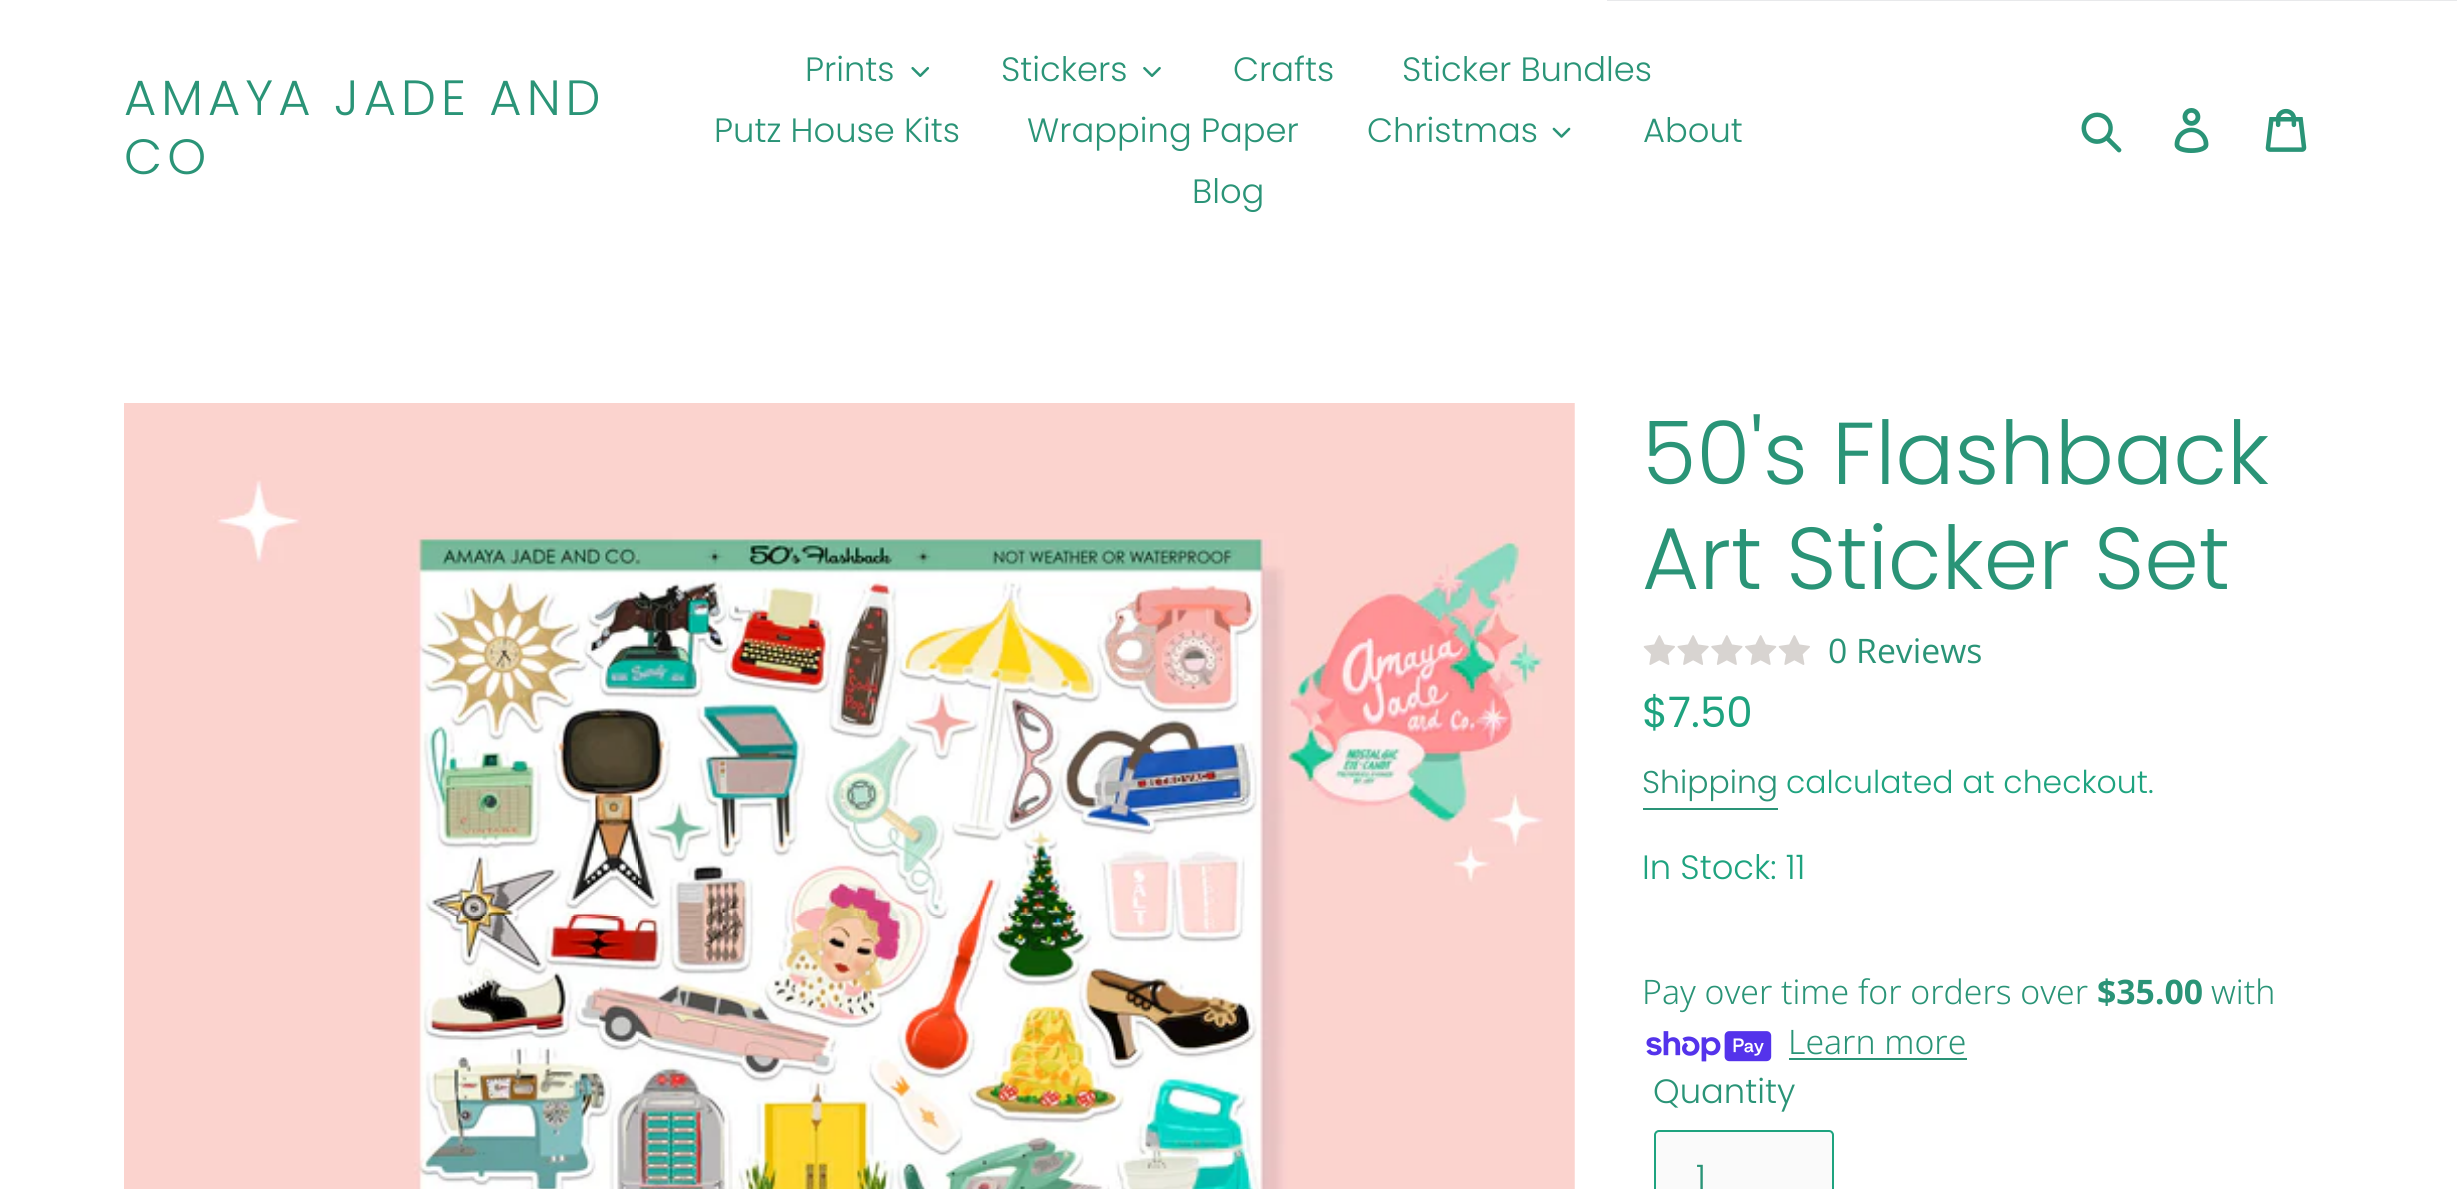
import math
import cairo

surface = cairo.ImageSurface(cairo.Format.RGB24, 2457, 1189)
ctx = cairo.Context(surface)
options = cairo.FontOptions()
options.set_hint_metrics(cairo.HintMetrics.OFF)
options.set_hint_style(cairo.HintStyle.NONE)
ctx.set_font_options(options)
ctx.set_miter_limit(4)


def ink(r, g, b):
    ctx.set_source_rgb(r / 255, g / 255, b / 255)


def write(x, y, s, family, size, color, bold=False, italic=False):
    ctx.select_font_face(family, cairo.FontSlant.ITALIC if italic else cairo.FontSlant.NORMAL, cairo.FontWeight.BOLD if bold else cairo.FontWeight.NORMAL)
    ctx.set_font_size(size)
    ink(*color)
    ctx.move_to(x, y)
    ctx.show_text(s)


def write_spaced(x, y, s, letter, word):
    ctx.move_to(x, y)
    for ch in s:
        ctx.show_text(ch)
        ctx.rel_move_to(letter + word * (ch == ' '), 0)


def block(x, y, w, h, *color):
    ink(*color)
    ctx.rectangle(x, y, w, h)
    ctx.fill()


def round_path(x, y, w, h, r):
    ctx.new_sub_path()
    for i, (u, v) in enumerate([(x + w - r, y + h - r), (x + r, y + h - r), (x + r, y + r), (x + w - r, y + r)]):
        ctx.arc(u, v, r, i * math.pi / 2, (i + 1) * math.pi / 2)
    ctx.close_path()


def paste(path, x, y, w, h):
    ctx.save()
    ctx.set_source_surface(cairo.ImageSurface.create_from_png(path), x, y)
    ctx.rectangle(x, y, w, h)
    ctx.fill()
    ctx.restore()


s1 = dict(family="Poppins Light", size=33.75, color=(42, 148, 119))
s2 = dict(family="Poppins Light", size=87.75, color=(42, 148, 119))
s3 = dict(family="Open Sans", size=33.75, color=(42, 148, 119))
s4 = dict(family="Poppins", size=42, color=(30, 163, 127))
s5 = dict(family="Poppins Light", size=31.5, color=(42, 148, 119))
s6 = dict(family="Poppins Light", size=31.5, color=(30, 163, 127))
s7 = dict(family="Poppins Light", size=33.75, color=(30, 163, 127))
s8 = dict(family="Noto Sans Light", size=33.75, color=(42, 148, 119))
s9 = dict(family="Noto Sans", size=33.75, color=(42, 148, 119), bold=True)

ink(255, 255, 255)
ctx.paint()
block(1607, 0, 850, 1, 232, 233, 235)
ctx.select_font_face("Poppins Light")
ctx.set_font_size(49.5)
ink(42, 148, 119)
write_spaced(124, 115, "AMAYA JADE AND", 5, 0)
write_spaced(124, 174, "CO", 5, 0)
write(805, 81, "Prints", **s1)
paste("pic1.png", 911, 66, 19, 11)
write(1001, 81, "Stickers", **s1)
paste("pic2.png", 1143, 66, 18, 11)
write(1233, 81, "Crafts", **s1)
write(1402, 81, "Sticker Bundles", **s1)
write(714, 142, "Putz House Kits", **s1)
write(1027, 142, "Wrapping Paper", **s1)
write(1367, 142, "Christmas", **s1)
paste("pic3.png", 1552, 127, 19, 11)
write(1643, 142, "About", **s1)
write(1192, 203, "Blog", **s1)
paste("pic4.png", 2081, 112, 41, 41)
paste("pic5.png", 2174, 108, 35, 45)
paste("pic6.png", 2265, 108, 42, 44)
paste("pic7.png", 124, 403, 1451, 786)
write(1642, 484, "50's Flashback", **s2)
write(1642, 589, "Art Sticker Set", **s2)
paste("pic8.png", 1643, 635, 32, 30)
paste("pic9.png", 1677, 635, 32, 30)
paste("pic10.png", 1711, 635, 32, 30)
paste("pic11.png", 1745, 635, 32, 30)
paste("pic8.png", 1778, 635, 32, 30)
write(1828, 663, "0 Reviews", **s3)
write(1642, 727, "$7.50", **s4)
write(1642, 793, "Shipping", **s5)
block(1643, 808, 135, 2, 42, 148, 119)
write(1786, 793, "calculated at checkout.", **s6)
write(1642, 879, "In Stock: 11", **s7)
write(1642, 1004, "Pay over time for orders over", **s8)
write(2097, 1004, "$35.00", **s9)
write(2211, 1004, "with", **s8)
paste("pic12.png", 1646, 1031, 126, 31)
write(1788, 1054, "Learn more", **s8)
block(1789, 1058, 178, 2, 42, 148, 119)
write(1653, 1103, "Quantity", **s1)
ink(250, 250, 250)
round_path(1655, 1131, 178, 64, 4)
ctx.fill_preserve()
ink(30, 163, 127)
ctx.stroke()
write(1696, 1189, "1", **s1)
surface.write_to_png("screenshot.png")
